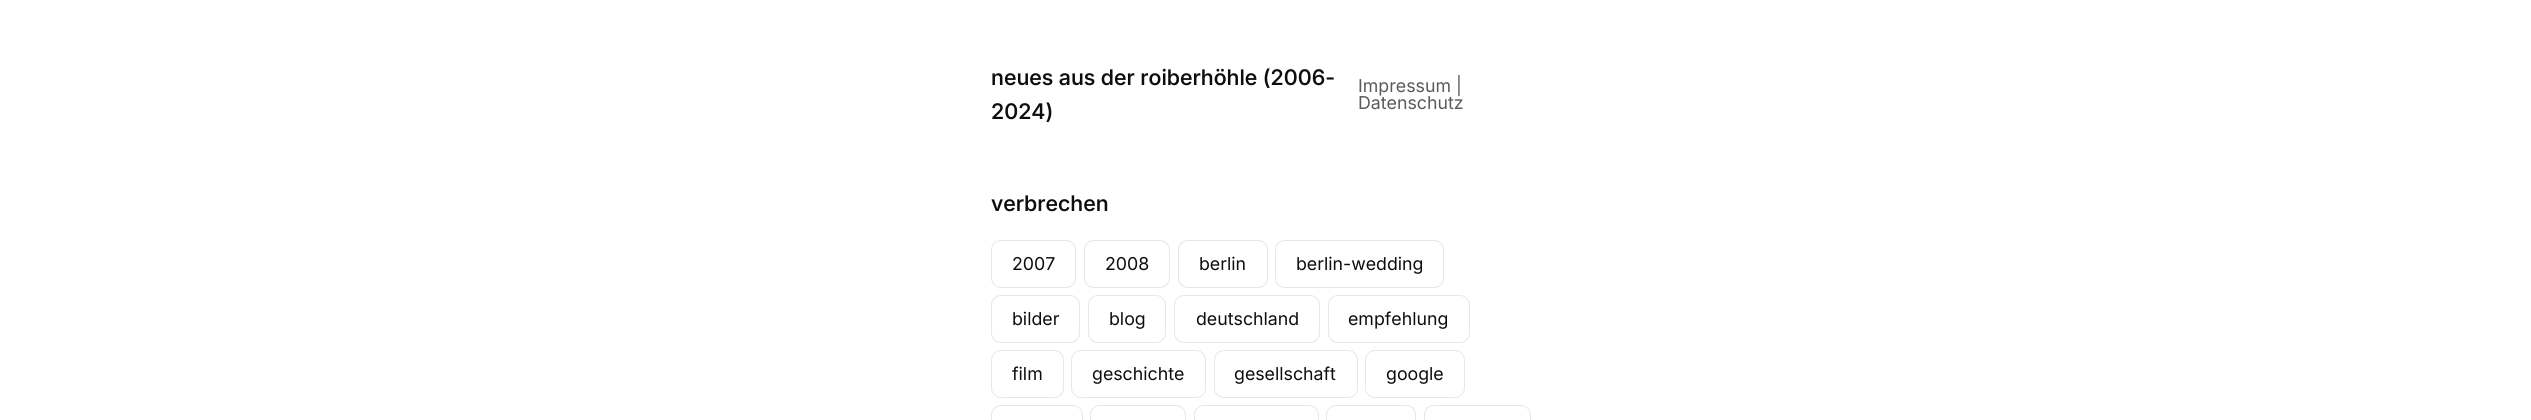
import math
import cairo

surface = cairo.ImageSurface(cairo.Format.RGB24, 2531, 420)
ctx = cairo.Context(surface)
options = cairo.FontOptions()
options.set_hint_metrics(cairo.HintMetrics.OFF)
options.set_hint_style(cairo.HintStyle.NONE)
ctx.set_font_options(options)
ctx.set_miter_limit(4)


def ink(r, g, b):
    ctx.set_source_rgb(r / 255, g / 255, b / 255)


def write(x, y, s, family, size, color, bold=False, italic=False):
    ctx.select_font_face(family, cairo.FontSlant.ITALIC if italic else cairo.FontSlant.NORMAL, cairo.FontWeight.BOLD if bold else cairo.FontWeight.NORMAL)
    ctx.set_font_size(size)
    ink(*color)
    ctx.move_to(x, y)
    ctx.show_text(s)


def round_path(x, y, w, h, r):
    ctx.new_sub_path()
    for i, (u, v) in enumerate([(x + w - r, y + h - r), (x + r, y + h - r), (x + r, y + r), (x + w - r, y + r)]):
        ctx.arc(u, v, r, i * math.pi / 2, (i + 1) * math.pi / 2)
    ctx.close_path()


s1 = dict(family="Inter Medium", size=21.5, color=(13, 13, 13))
s2 = dict(family="Inter", size=17.75, color=(90, 90, 90))
s3 = dict(family="Inter", size=17.75, color=(13, 13, 13))

ink(255, 255, 255)
ctx.paint()
write(991, 85, "neues aus der roiberhöhle (2006-", **s1)
write(991, 119, "2024)", **s1)
write(1358, 92, "Impressum |", **s2)
write(1358, 109, "Datenschutz", **s2)
write(991, 211, "verbrechen", **s1)
round_path(991.5, 240.5, 84, 47, 9.5)
ink(231, 231, 231)
ctx.set_line_width(1)
ctx.stroke()
write(1012, 270, "2007", **s3)
round_path(1084.5, 240.5, 85, 47, 9.5)
ink(231, 231, 231)
ctx.stroke()
write(1105, 270, "2008", **s3)
round_path(1178.5, 240.5, 89, 47, 9.5)
ink(231, 231, 231)
ctx.stroke()
write(1199, 270, "berlin", **s3)
round_path(1275.5, 240.5, 168, 47, 9.5)
ink(231, 231, 231)
ctx.stroke()
write(1296, 270, "berlin-wedding", **s3)
round_path(991.5, 295.5, 88, 47, 9.5)
ink(231, 231, 231)
ctx.stroke()
write(1012, 325, "bilder", **s3)
round_path(1088.5, 295.5, 77, 47, 9.5)
ink(231, 231, 231)
ctx.stroke()
write(1109, 325, "blog", **s3)
round_path(1174.5, 295.5, 145, 47, 9.5)
ink(231, 231, 231)
ctx.stroke()
write(1196, 325, "deutschland", **s3)
round_path(1328.5, 295.5, 141, 47, 9.5)
ink(231, 231, 231)
ctx.stroke()
write(1348, 325, "empfehlung", **s3)
round_path(991.5, 350.5, 72, 47, 9.5)
ink(231, 231, 231)
ctx.stroke()
write(1012, 380, "film", **s3)
round_path(1071.5, 350.5, 134, 47, 9.5)
ink(231, 231, 231)
ctx.stroke()
write(1092, 380, "geschichte", **s3)
round_path(1214.5, 350.5, 143, 47, 9.5)
ink(231, 231, 231)
ctx.stroke()
write(1234, 380, "gesellschaft", **s3)
round_path(1365.5, 350.5, 99, 47, 9.5)
ink(231, 231, 231)
ctx.stroke()
write(1386, 380, "google", **s3)
round_path(991.5, 405.5, 91, 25, 9.5)
ink(231, 231, 231)
ctx.stroke()
round_path(1090.5, 405.5, 95, 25, 9.5)
ctx.stroke()
round_path(1194.5, 405.5, 124, 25, 9.5)
ctx.stroke()
round_path(1326.5, 405.5, 89, 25, 9.5)
ctx.stroke()
round_path(1424.5, 405.5, 106, 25, 9.5)
ctx.stroke()
surface.write_to_png("screenshot.png")
